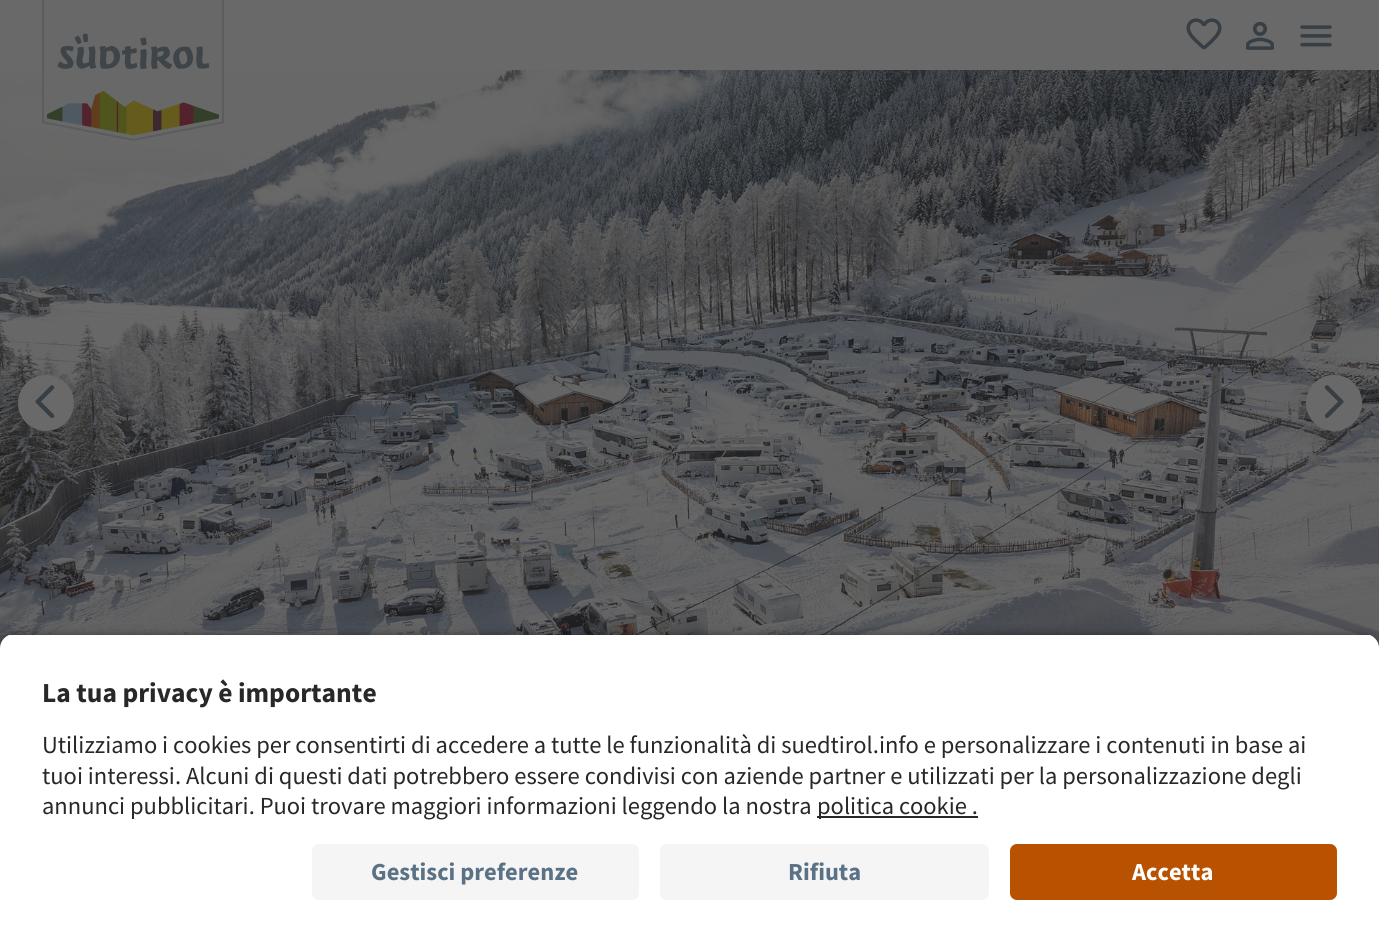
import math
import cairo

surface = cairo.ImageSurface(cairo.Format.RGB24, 1379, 940)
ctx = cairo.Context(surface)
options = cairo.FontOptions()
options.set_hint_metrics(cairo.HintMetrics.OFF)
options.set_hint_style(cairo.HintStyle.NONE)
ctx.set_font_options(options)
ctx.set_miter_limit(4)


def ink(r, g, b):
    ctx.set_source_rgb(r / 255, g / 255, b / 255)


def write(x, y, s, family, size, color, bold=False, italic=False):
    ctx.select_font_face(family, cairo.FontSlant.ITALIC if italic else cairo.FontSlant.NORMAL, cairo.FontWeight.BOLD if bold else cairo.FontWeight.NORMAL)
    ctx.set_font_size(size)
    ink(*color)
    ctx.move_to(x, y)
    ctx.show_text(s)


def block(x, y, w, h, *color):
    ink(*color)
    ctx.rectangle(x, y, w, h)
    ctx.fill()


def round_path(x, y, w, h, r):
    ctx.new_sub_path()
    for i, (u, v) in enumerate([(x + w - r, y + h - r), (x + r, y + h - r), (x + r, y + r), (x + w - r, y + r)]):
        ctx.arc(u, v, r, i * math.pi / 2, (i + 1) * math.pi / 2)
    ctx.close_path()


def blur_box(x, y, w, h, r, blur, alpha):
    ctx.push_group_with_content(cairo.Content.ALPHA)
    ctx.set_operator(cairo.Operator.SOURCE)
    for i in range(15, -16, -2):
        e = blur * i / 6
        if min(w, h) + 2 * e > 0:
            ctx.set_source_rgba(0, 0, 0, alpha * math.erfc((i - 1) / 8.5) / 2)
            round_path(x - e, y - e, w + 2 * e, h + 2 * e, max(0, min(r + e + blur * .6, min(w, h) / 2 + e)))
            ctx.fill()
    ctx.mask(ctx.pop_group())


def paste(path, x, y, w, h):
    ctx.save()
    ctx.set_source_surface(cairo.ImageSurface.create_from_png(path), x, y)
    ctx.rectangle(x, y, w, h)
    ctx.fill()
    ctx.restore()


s1 = dict(family="Source Sans Pro", size=27.5, color=(40, 40, 40), bold=True)
s2 = dict(family="Source Sans Pro", size=24.5, color=(40, 40, 40))
s3 = dict(family="Source Sans Pro", size=24.5, color=(91, 114, 134), bold=True)
s4 = dict(family="Source Sans Pro", size=24.5, color=(255, 255, 255), bold=True)

ink(105, 105, 105)
ctx.paint()
paste("pic5.png", 0, 70, 1379, 578)
paste("pic1.png", 42, 0, 182, 141)
paste("pic2.png", 1186, 18, 36, 32)
paste("pic3.png", 1246, 21, 28, 29)
paste("pic4.png", 1300, 25, 32, 22)
ink(28, 28, 28)
blur_box(18, 382, 56, 56, 28, 10.5, 0.16)
ink(105, 105, 105)
ctx.arc(46, 403, 28, 0, 2 * math.pi)
ctx.fill()
paste("pic6.png", 35, 385, 20, 33)
ink(28, 28, 28)
blur_box(1306, 382, 56, 56, 28, 10.5, 0.16)
ink(105, 105, 105)
ctx.arc(1334, 403, 28, 0, 2 * math.pi)
ctx.fill()
paste("pic7.png", 1324, 385, 20, 33)
ink(0, 0, 0)
blur_box(0, 639, 1379, 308, 14, 6, 0.8)
ctx.save()
ctx.new_path()
ctx.move_to(14, 634)
ctx.line_to(1365, 634)
ctx.curve_to(1372.5, 634, 1379, 640.5, 1379, 648)
ctx.line_to(1379, 830)
ctx.line_to(0, 830)
ctx.line_to(0, 648)
ctx.curve_to(0, 640.5, 6.5, 634, 14, 634)
ctx.close_path()
ctx.clip()
block(0, 635, 1379, 195, 255, 255, 255)
ctx.restore()
write(42, 702, "La tua privacy è importante", **s1)
write(42, 753, "Utilizziamo i cookies per consentirti di accedere a tutte le funzionalità di suedtirol.info e personalizzare i contenuti in base ai", **s2)
write(42, 784, "tuoi interessi. Alcuni di questi dati potrebbero essere condivisi con aziende partner e utilizzati per la personalizzazione degli", **s2)
write(42, 814, "annunci pubblicitari. Puoi trovare maggiori informazioni leggendo la nostra", **s2)
block(817, 816, 161, 2, 40, 40, 40)
write(817, 814, "politica cookie .", **s2)
block(0, 830, 1379, 110, 255, 255, 255)
ink(245, 245, 245)
round_path(312, 844, 327, 56, 7)
ctx.fill()
write(371, 880, "Gestisci preferenze", **s3)
ink(245, 245, 245)
round_path(660, 844, 329, 56, 7)
ctx.fill()
write(788, 880, "Rifiuta", **s3)
ink(185, 82, 0)
round_path(1010, 844, 327, 56, 7)
ctx.fill()
write(1132, 880, "Accetta", **s4)
surface.write_to_png("screenshot.png")
